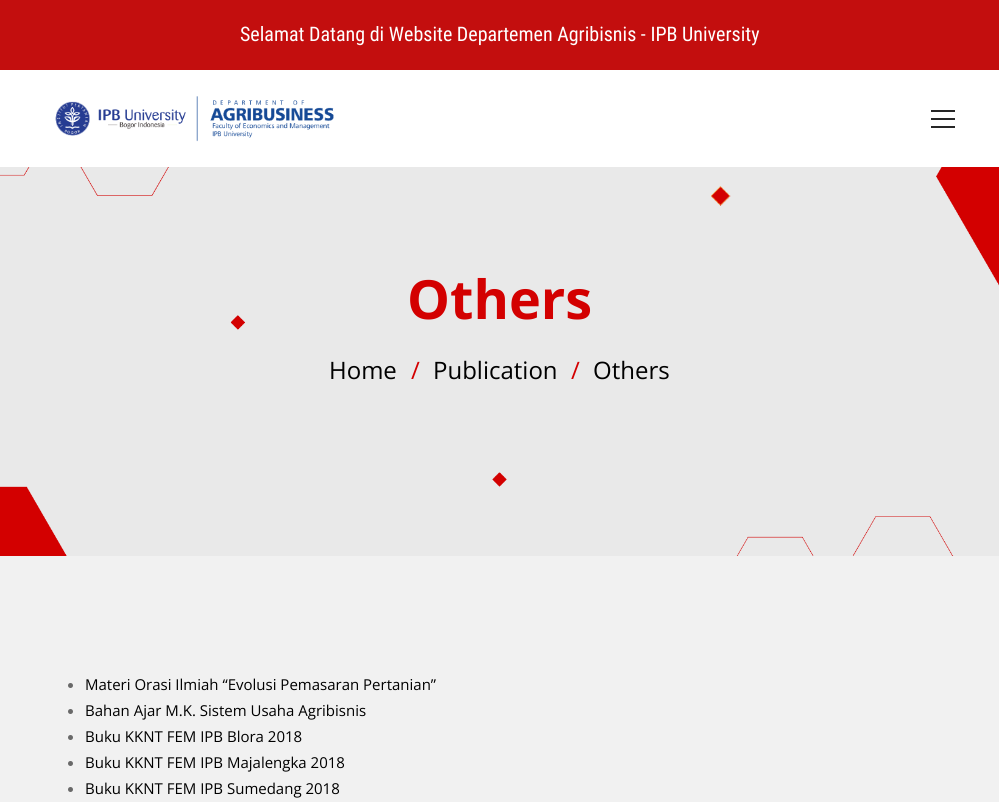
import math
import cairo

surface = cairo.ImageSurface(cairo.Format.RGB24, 999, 802)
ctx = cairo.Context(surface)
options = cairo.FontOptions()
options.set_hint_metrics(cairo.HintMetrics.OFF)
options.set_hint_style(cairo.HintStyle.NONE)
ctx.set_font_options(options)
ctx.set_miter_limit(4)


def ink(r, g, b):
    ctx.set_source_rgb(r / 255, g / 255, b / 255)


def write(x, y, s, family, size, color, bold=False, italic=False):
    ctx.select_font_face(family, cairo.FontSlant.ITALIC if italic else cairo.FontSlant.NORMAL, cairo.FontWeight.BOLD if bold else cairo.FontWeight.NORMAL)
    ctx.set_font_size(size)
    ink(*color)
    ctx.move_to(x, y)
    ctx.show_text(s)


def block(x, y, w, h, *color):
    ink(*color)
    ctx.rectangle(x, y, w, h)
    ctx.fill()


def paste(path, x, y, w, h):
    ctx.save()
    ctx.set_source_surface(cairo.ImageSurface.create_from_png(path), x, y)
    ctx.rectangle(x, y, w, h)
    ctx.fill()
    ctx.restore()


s1 = dict(family="Roboto Condensed", size=20, color=(255, 255, 255))
s2 = dict(family="Open Sans", size=54, color=(211, 0, 0), bold=True)
s3 = dict(family="Open Sans", size=24, color=(0, 0, 0))
s4 = dict(family="Open Sans", size=24, color=(211, 0, 0))
s5 = dict(family="Open Sans", size=15, color=(0, 0, 0))

ink(241, 241, 241)
ctx.paint()
block(0, 0, 999, 70, 195, 14, 14)
write(240, 41, "Selamat Datang di Website Departemen Agribisnis - IPB University", **s1)
block(0, 70, 999, 97, 255, 255, 255)
paste("pic1.png", 55, 96, 279, 46)
block(931, 118, 24, 2, 38, 38, 38)
block(931, 110, 24, 2, 38, 38, 38)
block(931, 126, 24, 2, 38, 38, 38)
paste("pic2.png", 0, 167, 999, 389)
write(407, 319, "Others", **s2)
write(329, 379, "Home", **s3)
write(411, 379, "/", **s4)
write(433, 379, "Publication", **s3)
write(571, 379, "/", **s4)
write(593, 379, "Others", **s3)
ink(105, 105, 105)
ctx.new_path()
ctx.arc(70.5, 685.5, 2.5, 0, 2 * math.pi)
ctx.fill()
write(85, 690, "Materi Orasi Ilmiah “Evolusi Pemasaran Pertanian”", **s5)
ink(105, 105, 105)
ctx.new_path()
ctx.arc(70.5, 711.5, 2.5, 0, 2 * math.pi)
ctx.fill()
write(85, 716, "Bahan Ajar M.K. Sistem Usaha Agribisnis", **s5)
ink(105, 105, 105)
ctx.new_path()
ctx.arc(70.5, 737.5, 2.5, 0, 2 * math.pi)
ctx.fill()
write(85, 742, "Buku KKNT FEM IPB Blora 2018", **s5)
ink(105, 105, 105)
ctx.new_path()
ctx.arc(70.5, 763.5, 2.5, 0, 2 * math.pi)
ctx.fill()
write(85, 768, "Buku KKNT FEM IPB Majalengka 2018", **s5)
ink(105, 105, 105)
ctx.new_path()
ctx.arc(70.5, 789.5, 2.5, 0, 2 * math.pi)
ctx.fill()
write(85, 794, "Buku KKNT FEM IPB Sumedang 2018", **s5)
surface.write_to_png("screenshot.png")
